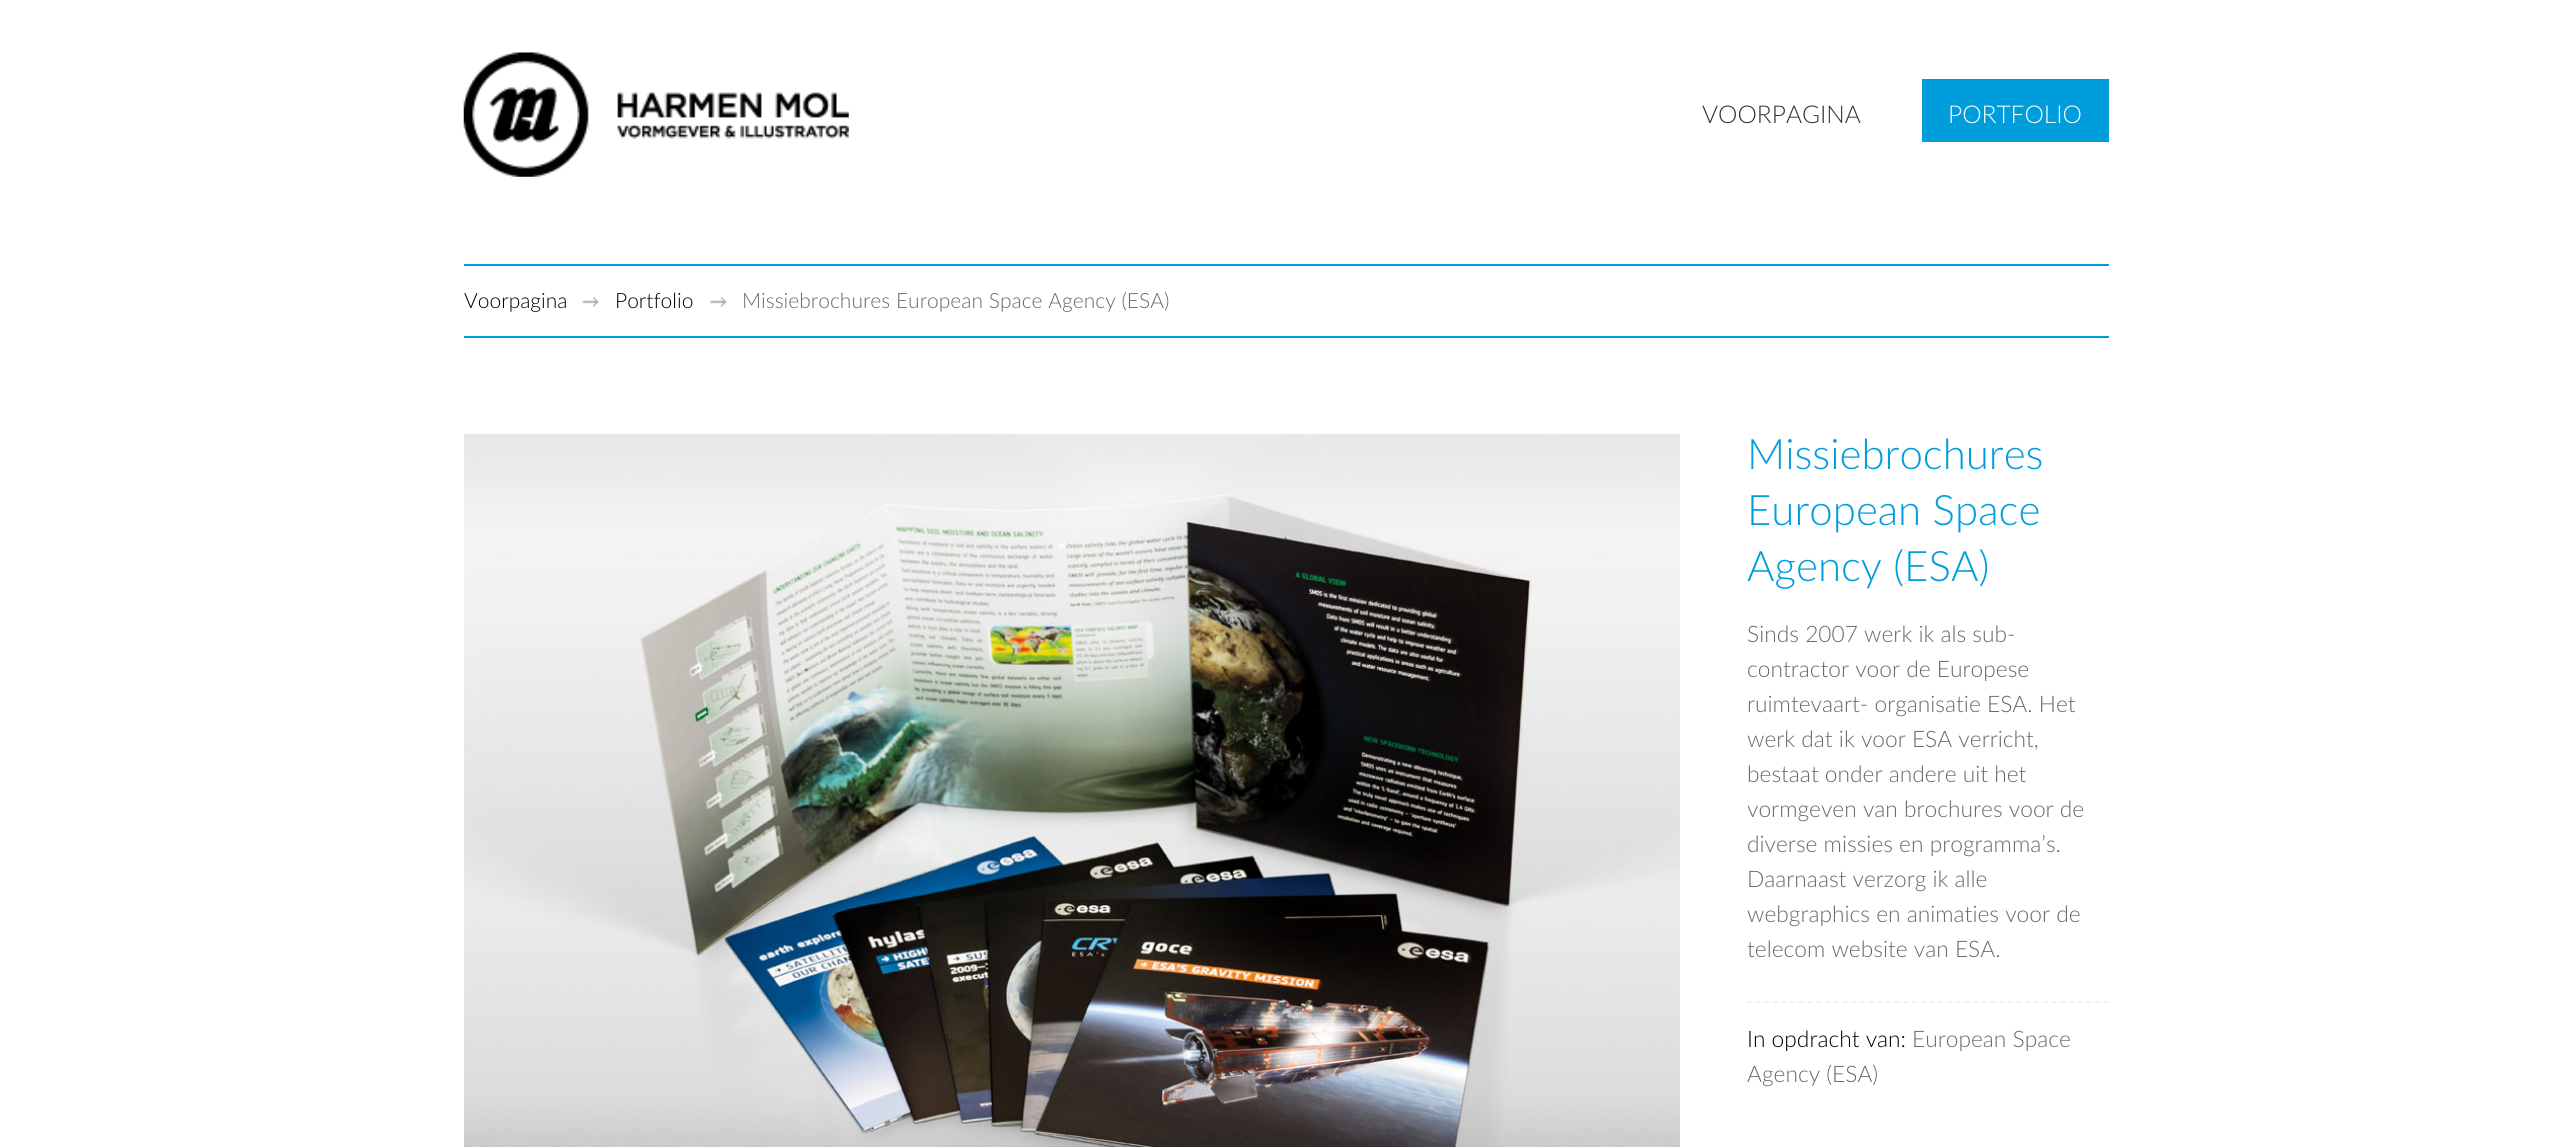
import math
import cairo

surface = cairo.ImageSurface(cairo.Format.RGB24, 2572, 1147)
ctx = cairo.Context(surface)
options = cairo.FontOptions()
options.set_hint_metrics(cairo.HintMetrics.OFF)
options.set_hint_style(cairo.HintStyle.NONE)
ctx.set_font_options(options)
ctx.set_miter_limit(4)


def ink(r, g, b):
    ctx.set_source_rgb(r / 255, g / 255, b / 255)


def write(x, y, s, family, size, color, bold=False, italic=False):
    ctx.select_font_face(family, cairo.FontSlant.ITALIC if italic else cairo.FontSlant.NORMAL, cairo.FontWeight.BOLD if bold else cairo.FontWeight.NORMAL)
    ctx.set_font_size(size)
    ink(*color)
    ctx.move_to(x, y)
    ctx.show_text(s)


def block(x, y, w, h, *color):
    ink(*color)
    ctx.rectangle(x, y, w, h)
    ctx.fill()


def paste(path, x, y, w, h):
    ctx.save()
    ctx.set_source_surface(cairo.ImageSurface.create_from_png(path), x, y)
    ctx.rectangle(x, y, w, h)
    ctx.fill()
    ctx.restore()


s1 = dict(family="Lato Light", size=24.5, color=(50, 50, 50))
s2 = dict(family="Lato Light", size=24.5, color=(255, 255, 255))
s3 = dict(family="Lato Light", size=21, color=(0, 0, 0))
s4 = dict(family="Lato Light", size=21, color=(104, 104, 104))
s5 = dict(family="Lato Light", size=42, color=(0, 157, 220))
s6 = dict(family="Lato Light", size=22.75, color=(104, 104, 104))
s7 = dict(family="Lato Light", size=22.75, color=(0, 0, 0))

ink(255, 255, 255)
ctx.paint()
paste("pic1.png", 463, 52, 386, 125)
write(1702, 123, "VOORPAGINA", **s1)
block(1922, 79, 187, 63, 0, 157, 220)
write(1948, 123, "PORTFOLIO", **s2)
block(464, 264, 1645, 2, 0, 157, 220)
write(464, 308, "Voorpagina", **s3)
paste("pic2.png", 582, 297, 17, 10)
write(615, 308, "Portfolio", **s3)
paste("pic3.png", 710, 297, 17, 10)
write(742, 308, "Missiebrochures European Space Agency (ESA)", **s4)
block(464, 336, 1645, 2, 0, 157, 220)
paste("pic4.png", 464, 434, 1216, 713)
write(1747, 469, "Missiebrochures", **s5)
write(1747, 525, "European Space", **s5)
write(1747, 581, "Agency (ESA)", **s5)
write(1747, 642, "Sinds 2007 werk ik als sub-", **s6)
write(1747, 677, "contractor voor de Europese", **s6)
write(1747, 712, "ruimtevaart- organisatie ESA. Het", **s6)
write(1747, 747, "werk dat ik voor ESA verricht,", **s6)
write(1747, 782, "bestaat onder andere uit het", **s6)
write(1747, 817, "vormgeven van brochures voor de", **s6)
write(1747, 852, "diverse missies en programma’s.", **s6)
write(1747, 887, "Daarnaast verzorg ik alle", **s6)
write(1747, 922, "webgraphics en animaties voor de", **s6)
write(1747, 957, "telecom website van ESA.", **s6)
ctx.new_path()
ctx.move_to(1746.5, 1002)
ctx.line_to(2109, 1002)
ink(239, 239, 239)
ctx.set_line_width(1.8)
ctx.set_dash([5.25, 3.46])
ctx.stroke()
write(1747, 1047, "In opdracht van:", **s7)
write(1912, 1047, "European Space", **s6)
write(1747, 1082, "Agency (ESA)", **s6)
surface.write_to_png("screenshot.png")
